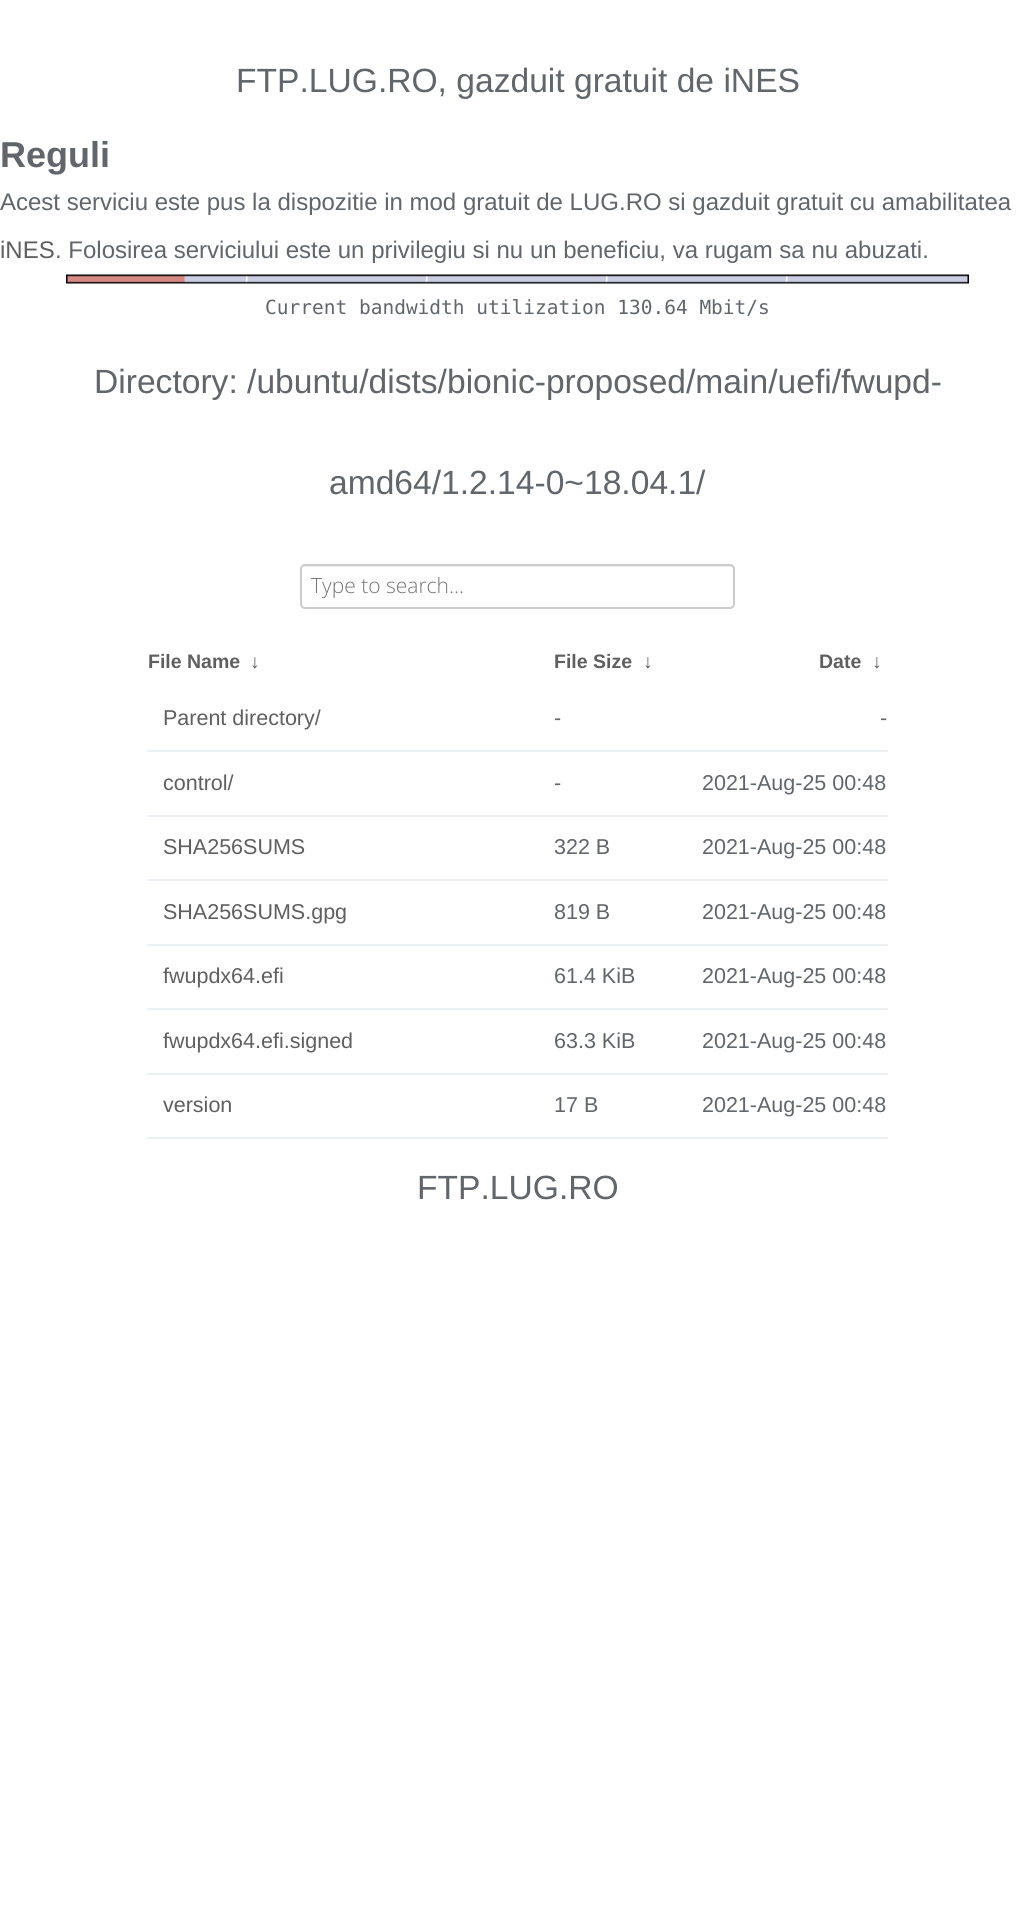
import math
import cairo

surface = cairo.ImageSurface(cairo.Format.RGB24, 1035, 1924)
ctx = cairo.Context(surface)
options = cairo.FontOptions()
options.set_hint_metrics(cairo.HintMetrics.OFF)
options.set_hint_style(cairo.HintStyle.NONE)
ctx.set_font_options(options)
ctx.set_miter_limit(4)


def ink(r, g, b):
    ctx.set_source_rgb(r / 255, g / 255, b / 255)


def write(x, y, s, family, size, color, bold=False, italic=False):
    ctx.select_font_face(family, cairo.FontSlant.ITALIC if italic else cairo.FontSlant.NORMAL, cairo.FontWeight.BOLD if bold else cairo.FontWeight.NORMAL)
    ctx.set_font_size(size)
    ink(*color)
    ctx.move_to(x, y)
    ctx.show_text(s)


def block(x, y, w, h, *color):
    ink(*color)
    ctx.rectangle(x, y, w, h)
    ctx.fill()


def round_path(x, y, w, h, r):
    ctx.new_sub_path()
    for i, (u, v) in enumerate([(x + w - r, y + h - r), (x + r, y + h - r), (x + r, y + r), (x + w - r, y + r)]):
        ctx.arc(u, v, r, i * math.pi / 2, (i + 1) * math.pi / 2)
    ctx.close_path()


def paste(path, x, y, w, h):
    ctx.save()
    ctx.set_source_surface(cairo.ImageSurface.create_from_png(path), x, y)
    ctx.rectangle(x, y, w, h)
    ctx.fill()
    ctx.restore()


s1 = dict(family="Liberation Sans", size=33.6, color=(97, 102, 108))
s2 = dict(family="Liberation Sans", size=36, color=(97, 102, 108), bold=True)
s3 = dict(family="Liberation Sans", size=24, color=(97, 102, 108))
s4 = dict(family="Liberation Sans", size=24, color=(95, 95, 95))
s5 = dict(family="DejaVu Sans Mono", size=19.5, color=(97, 102, 108))
s6 = dict(family="Open Sans Light", size=21, color=(117, 117, 117))
s7 = dict(family="Liberation Sans", size=19.5, color=(95, 95, 95), bold=True)
s8 = dict(family="Liberation Sans", size=21.5, color=(95, 95, 95))
s9 = dict(family="Liberation Sans", size=21.5, color=(97, 102, 108))

ink(255, 255, 255)
ctx.paint()
write(236, 92, "FTP.LUG.RO, gazduit gratuit de iNES", **s1)
write(0, 167, "Reguli", **s2)
write(0, 210, "Acest serviciu este pus la dispozitie in mod gratuit de LUG.RO si gazduit gratuit cu amabilitatea", **s3)
write(0, 258, "iNES", **s4)
write(55, 258, ". Folosirea serviciului este un privilegiu si nu un beneficiu, va rugam sa nu abuzati.", **s3)
paste("pic1.png", 66, 274, 903, 10)
write(265, 314, "Current bandwidth utilization 130.64 Mbit/s", **s5)
write(94, 393, "Directory: /ubuntu/dists/bionic-proposed/main/uefi/fwupd-", **s1)
write(329, 494, "amd64/1.2.14-0~18.04.1/", **s1)
ink(236, 236, 236)
ctx.new_path()
ctx.move_to(304, 567)
ctx.line_to(730, 567)
ctx.curve_to(732, 567, 734, 568, 734, 570)
ctx.curve_to(734, 568, 733, 566, 731, 566)
ctx.line_to(305, 566)
ctx.curve_to(303, 566, 302, 568, 302, 570)
ctx.curve_to(302, 568, 303, 567, 304, 567)
ctx.close_path()
ctx.fill()
round_path(301, 565, 433, 43, 4)
ink(204, 204, 204)
ctx.stroke()
write(311, 593, "Type to search...", **s6)
write(148, 668, "File Name", **s7)
write(250, 668, "↓", **s7)
write(554, 668, "File Size", **s7)
write(643, 668, "↓", **s7)
write(819, 668, "Date", **s7)
write(872, 668, "↓", **s7)
write(163, 725, "Parent directory/", **s8)
write(554, 725, "-", **s9)
block(147, 750, 741, 2, 237, 241, 245)
write(880, 725, "-", **s9)
write(163, 790, "control/", **s8)
write(554, 790, "-", **s9)
block(147, 815, 741, 2, 237, 241, 245)
write(702, 790, "2021-Aug-25 00:48", **s9)
write(163, 854, "SHA256SUMS", **s8)
write(554, 854, "322 B", **s9)
block(147, 879, 741, 2, 237, 241, 245)
write(702, 854, "2021-Aug-25 00:48", **s9)
write(163, 919, "SHA256SUMS.gpg", **s8)
write(554, 919, "819 B", **s9)
block(147, 944, 741, 2, 237, 241, 245)
write(702, 919, "2021-Aug-25 00:48", **s9)
write(163, 983, "fwupdx64.efi", **s8)
write(554, 983, "61.4 KiB", **s9)
block(147, 1008, 741, 2, 237, 241, 245)
write(702, 983, "2021-Aug-25 00:48", **s9)
write(163, 1048, "fwupdx64.efi.signed", **s8)
write(554, 1048, "63.3 KiB", **s9)
block(147, 1073, 741, 2, 237, 241, 245)
write(702, 1048, "2021-Aug-25 00:48", **s9)
write(163, 1112, "version", **s8)
write(554, 1112, "17 B", **s9)
block(147, 1137, 741, 2, 237, 241, 245)
write(702, 1112, "2021-Aug-25 00:48", **s9)
write(417, 1199, "FTP.LUG.RO", **s1)
surface.write_to_png("screenshot.png")
